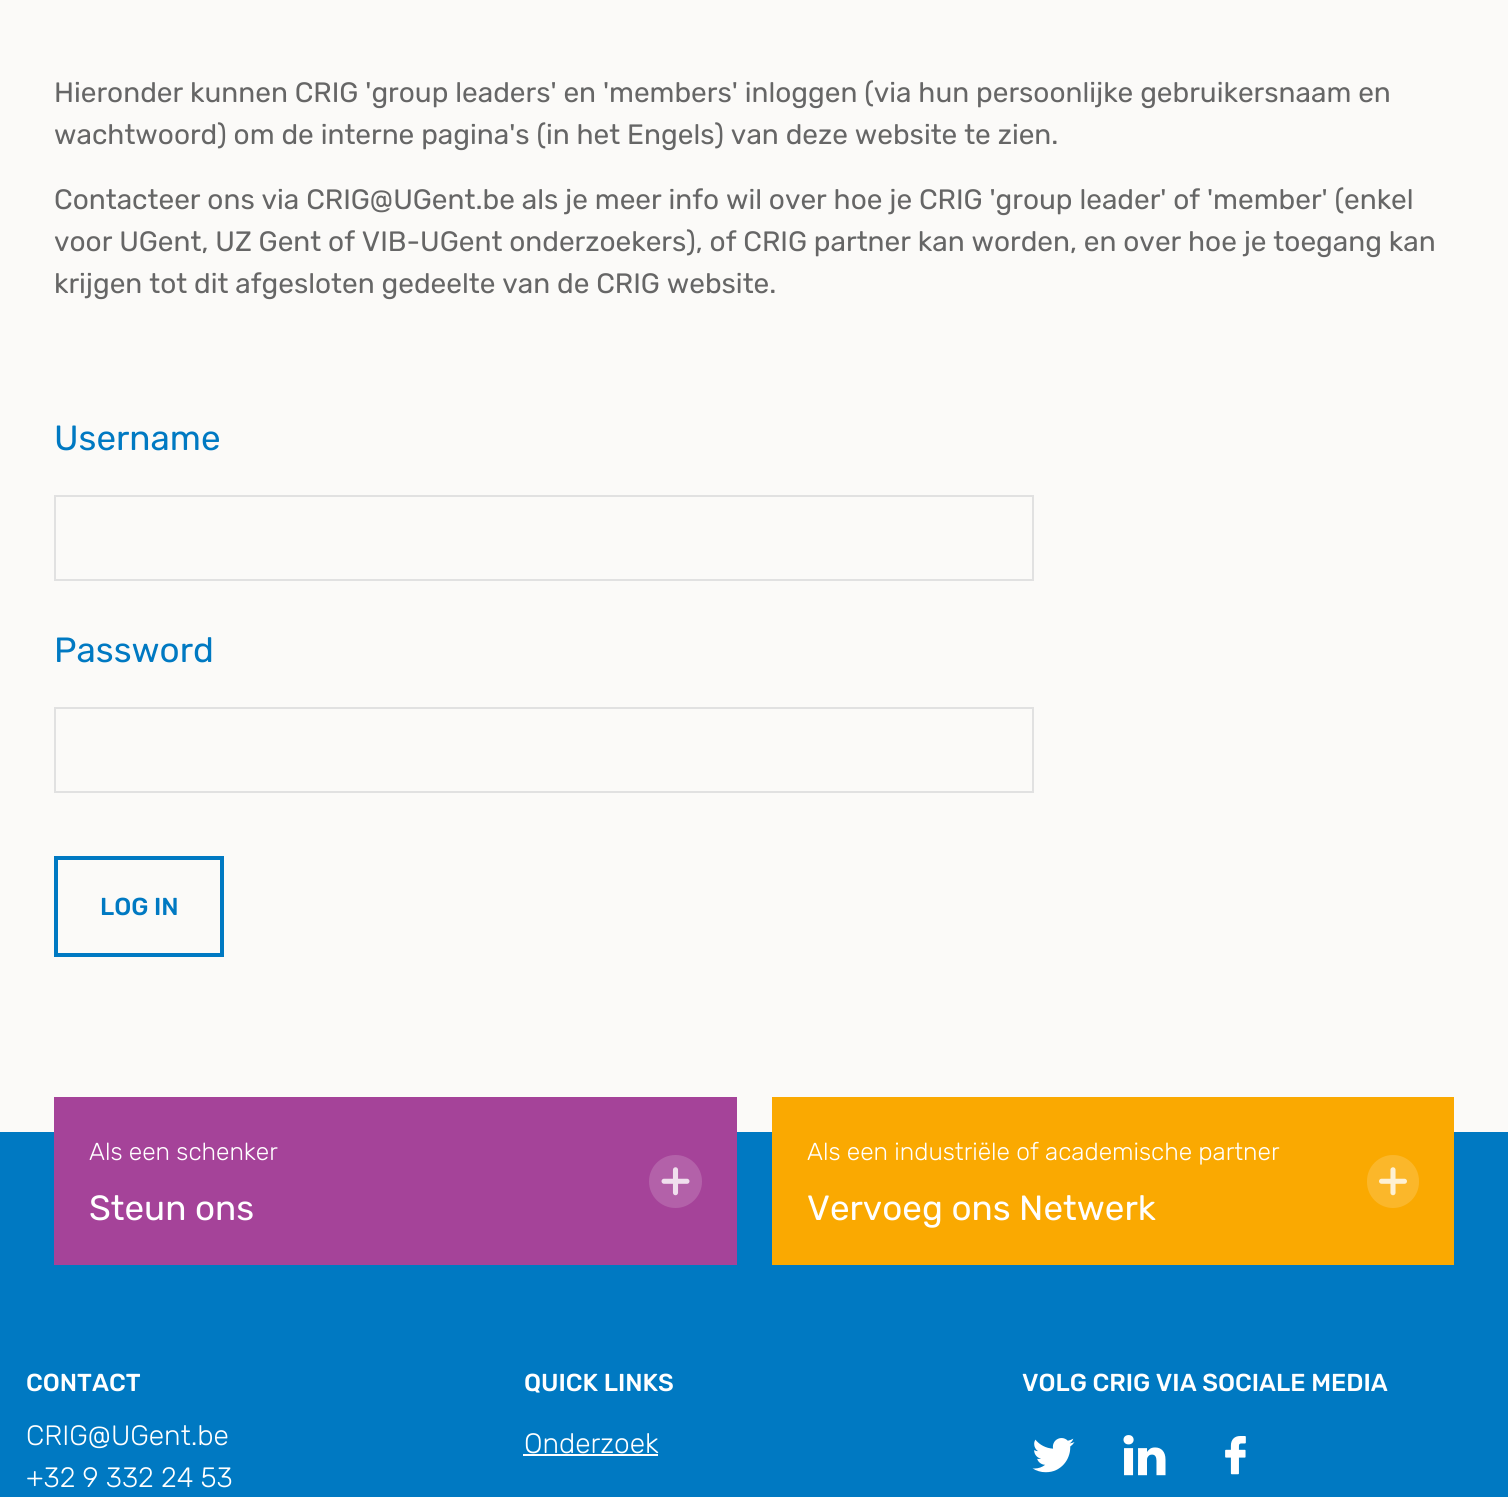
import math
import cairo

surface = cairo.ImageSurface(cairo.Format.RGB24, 1508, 1497)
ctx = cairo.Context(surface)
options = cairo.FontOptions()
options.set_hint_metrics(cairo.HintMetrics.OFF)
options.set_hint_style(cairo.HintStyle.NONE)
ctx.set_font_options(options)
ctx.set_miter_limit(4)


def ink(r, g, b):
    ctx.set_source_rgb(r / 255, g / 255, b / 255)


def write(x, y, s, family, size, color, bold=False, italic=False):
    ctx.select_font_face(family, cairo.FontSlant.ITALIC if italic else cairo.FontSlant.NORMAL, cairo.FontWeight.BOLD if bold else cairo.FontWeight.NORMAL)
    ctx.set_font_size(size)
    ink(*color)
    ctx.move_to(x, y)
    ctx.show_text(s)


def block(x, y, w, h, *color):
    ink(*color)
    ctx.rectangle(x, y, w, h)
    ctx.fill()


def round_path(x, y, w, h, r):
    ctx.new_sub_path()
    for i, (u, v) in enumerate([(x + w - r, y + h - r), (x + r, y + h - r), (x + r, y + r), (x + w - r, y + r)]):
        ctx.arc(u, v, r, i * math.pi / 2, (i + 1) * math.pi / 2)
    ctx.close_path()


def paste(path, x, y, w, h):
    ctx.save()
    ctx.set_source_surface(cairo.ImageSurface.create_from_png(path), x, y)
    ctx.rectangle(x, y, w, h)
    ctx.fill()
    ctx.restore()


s1 = dict(family="Rubik", size=28, color=(102, 102, 102))
s2 = dict(family="Rubik", size=35, color=(0, 121, 194))
s3 = dict(family="Rubik Medium", size=24.5, color=(0, 121, 194))
s4 = dict(family="Rubik Light", size=24.5, color=(255, 255, 255))
s5 = dict(family="Rubik", size=35, color=(255, 255, 255))
s6 = dict(family="Rubik Medium", size=24.5, color=(255, 255, 255))
s7 = dict(family="Rubik Light", size=28, color=(255, 255, 255))

ink(251, 250, 248)
ctx.paint()
write(54, 102, "Hieronder kunnen CRIG 'group leaders' en 'members' inloggen (via hun persoonlijke gebruikersnaam en", **s1)
write(54, 144, "wachtwoord) om de interne pagina's (in het Engels) van deze website te zien.", **s1)
write(54, 209, "Contacteer ons via CRIG@UGent.be als je meer info wil over hoe je CRIG 'group leader' of 'member' (enkel", **s1)
write(54, 251, "voor UGent, UZ Gent of VIB-UGent onderzoekers), of CRIG partner kan worden, en over hoe je toegang kan", **s1)
write(54, 293, "krijgen tot dit afgesloten gedeelte van de CRIG website.", **s1)
write(54, 450, "Username", **s2)
ctx.rectangle(55, 496, 978, 84)
ink(225, 225, 225)
ctx.stroke()
write(54, 662, "Password", **s2)
ctx.rectangle(55, 708, 978, 84)
ink(225, 225, 225)
ctx.stroke()
ctx.rectangle(56, 858, 166, 97)
ink(0, 121, 194)
ctx.set_line_width(4)
ctx.stroke()
write(100, 915, "LOG IN", **s3)
block(0, 1132, 1508, 365, 0, 121, 194)
block(54, 1097, 683, 168, 165, 67, 153)
write(89, 1160, "Als een schenker", **s4)
write(89, 1220, "Steun ons", **s5)
ink(179, 97, 169)
ctx.new_path()
ctx.arc(675.5, 1181.5, 26.5, 0, 2 * math.pi)
ctx.fill()
paste("pic1.png", 661, 1167, 29, 29)
block(772, 1097, 682, 168, 250, 169, 1)
write(807, 1160, "Als een industriële of academische partner", **s4)
write(807, 1220, "Vervoeg ons Netwerk", **s5)
ink(251, 183, 42)
round_path(1367, 1155, 52, 53, 26)
ctx.fill()
paste("pic2.png", 1379, 1167, 28, 29)
write(26, 1391, "CONTACT", **s6)
write(26, 1445, "CRIG@UGent.be", **s7)
write(26, 1487, "+32 9 332 24 53", **s7)
write(524, 1391, "QUICK LINKS", **s6)
write(524, 1453, "Onderzoek", **s7)
block(523, 1454, 135, 2, 255, 255, 255)
write(1022, 1391, "VOLG CRIG VIA SOCIALE MEDIA", **s6)
paste("pic3.png", 1032, 1438, 43, 35)
paste("pic4.png", 1123, 1435, 43, 41)
paste("pic5.png", 1225, 1436, 21, 39)
surface.write_to_png("screenshot.png")
